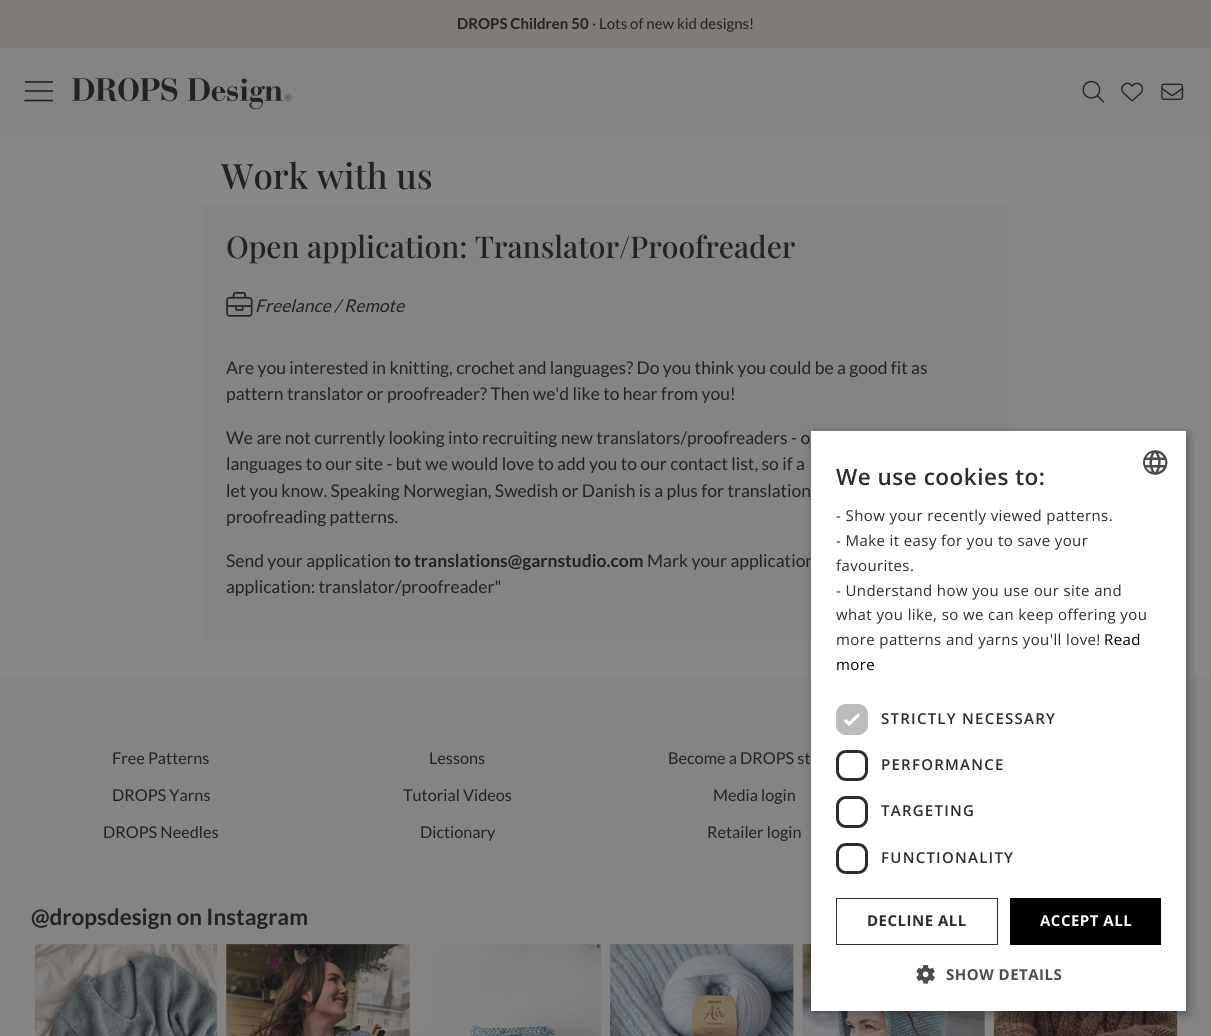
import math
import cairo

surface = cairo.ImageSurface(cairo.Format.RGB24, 1211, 1036)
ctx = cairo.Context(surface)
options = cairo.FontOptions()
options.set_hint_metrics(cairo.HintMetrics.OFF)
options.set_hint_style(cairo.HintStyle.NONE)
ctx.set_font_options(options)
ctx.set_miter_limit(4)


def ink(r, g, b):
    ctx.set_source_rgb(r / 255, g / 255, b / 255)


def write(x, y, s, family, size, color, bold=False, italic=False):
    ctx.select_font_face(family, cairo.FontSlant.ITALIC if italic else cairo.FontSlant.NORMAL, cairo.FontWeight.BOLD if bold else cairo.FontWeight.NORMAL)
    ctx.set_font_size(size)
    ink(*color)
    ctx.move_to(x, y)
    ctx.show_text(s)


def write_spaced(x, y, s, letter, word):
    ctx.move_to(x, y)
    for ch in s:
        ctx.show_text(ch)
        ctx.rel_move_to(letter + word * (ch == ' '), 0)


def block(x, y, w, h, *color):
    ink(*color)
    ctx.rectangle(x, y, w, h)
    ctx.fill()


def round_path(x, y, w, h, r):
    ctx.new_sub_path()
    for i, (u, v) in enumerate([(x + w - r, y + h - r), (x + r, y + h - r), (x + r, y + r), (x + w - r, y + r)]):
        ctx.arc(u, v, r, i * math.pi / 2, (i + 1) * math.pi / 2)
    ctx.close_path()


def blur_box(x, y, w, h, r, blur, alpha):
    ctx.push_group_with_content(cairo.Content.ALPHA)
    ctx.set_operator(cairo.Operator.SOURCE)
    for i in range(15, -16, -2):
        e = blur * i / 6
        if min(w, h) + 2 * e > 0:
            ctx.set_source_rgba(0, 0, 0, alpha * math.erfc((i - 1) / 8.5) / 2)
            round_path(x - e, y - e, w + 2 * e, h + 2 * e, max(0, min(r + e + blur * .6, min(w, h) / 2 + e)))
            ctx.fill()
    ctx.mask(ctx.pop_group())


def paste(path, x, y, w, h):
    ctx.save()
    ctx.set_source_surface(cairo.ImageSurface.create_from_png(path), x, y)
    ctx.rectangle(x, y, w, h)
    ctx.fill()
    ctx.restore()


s1 = dict(family="Lato", size=15, color=(34, 34, 34), bold=True)
s2 = dict(family="Lato", size=15, color=(34, 34, 34))
s3 = dict(family="Playfair Display Medium", size=35, color=(34, 34, 34))
s4 = dict(family="Playfair Display Medium", size=30, color=(34, 34, 34))
s5 = dict(family="Lato", size=17.5, color=(34, 34, 34), italic=True)
s6 = dict(family="Lato", size=17.5, color=(34, 34, 34))
s7 = dict(family="Lato", size=17.5, color=(34, 34, 34), bold=True)
s8 = dict(family="Lato", size=16.25, color=(34, 34, 34))
s9 = dict(family="Lato", size=22.5, color=(34, 34, 34), bold=True)

ink(136, 136, 136)
ctx.paint()
block(0, 0, 1211, 48, 127, 123, 118)
write(457, 29, "DROPS Children 50", **s1)
write(592, 29, "· Lots of new kid designs!", **s2)
block(0, 48, 1211, 87, 134, 132, 131)
block(25, 90, 28, 2, 54, 54, 54)
block(25, 81, 28, 2, 54, 54, 54)
ctx.new_path()
ctx.move_to(24.5, 100.5)
ctx.line_to(53, 100.5)
ink(34, 34, 34)
ctx.set_line_width(1.6)
ctx.stroke()
paste("pic1.png", 71, 77, 221, 33)
paste("pic2.png", 1082, 80, 23, 23)
paste("pic3.png", 1121, 82, 23, 20)
paste("pic4.png", 1161, 83, 23, 17)
write(221, 189, "Work with us", **s3)
block(203, 205, 806, 435, 134, 132, 131)
write(226, 258, "Open application: Translator/Proofreader", **s4)
paste("pic5.png", 226, 292, 27, 25)
write(255, 312, "Freelance / Remote", **s5)
write(226, 374, "Are you interested in knitting, crochet and languages? Do you think you could be a good fit as", **s6)
write(226, 400, "pattern translator or proofreader? Then we'd like to hear from you!", **s6)
write(226, 444, "We are not currently looking into recruiting new translators/proofreaders - o", **s6)
write(226, 470, "languages to our site - but we would love to add you to our contact list, so if a", **s6)
write(226, 497, "let you know. Speaking Norwegian, Swedish or Danish is a plus for translation", **s6)
write(226, 523, "proofreading patterns.", **s6)
write(226, 567, "Send your application", **s6)
write(394, 567, "to translations@garnstudio.com", **s7)
write(647, 567, "Mark your application", **s6)
write(226, 593, "application: translator/proofreader\"", **s6)
block(0, 678, 1211, 358, 134, 132, 131)
write(112, 764, "Free Patterns", **s8)
write(112, 801, "DROPS Yarns", **s8)
write(103, 838, "DROPS Needles", **s8)
write(429, 764, "Lessons", **s8)
write(403, 801, "Tutorial Videos", **s8)
write(420, 838, "Dictionary", **s8)
write(668, 764, "Become a DROPS st", **s8)
write(713, 801, "Media login", **s8)
write(707, 838, "Retailer login", **s8)
write(31, 925, "@dropsdesign on Instagram", **s9)
block(35, 944, 183, 92, 129, 129, 129)
paste("pic6.png", 35, 944, 183, 92)
block(226, 944, 184, 92, 129, 129, 129)
paste("pic7.png", 226, 944, 184, 92)
paste("pic8.png", 419, 944, 182, 92)
block(610, 944, 184, 92, 129, 129, 129)
paste("pic9.png", 610, 944, 184, 92)
block(803, 944, 182, 92, 129, 129, 129)
paste("pic10.png", 802, 944, 183, 92)
block(1177, 1011, 1, 25, 129, 129, 129)
paste("pic11.png", 993, 1011, 185, 25)
ink(0, 0, 0)
blur_box(813, 434, 375, 580, 0, 5, 0.35)
block(811, 431, 375, 580, 255, 255, 255)
ctx.select_font_face("Open Sans SemiBold")
ink(45, 45, 45)
write_spaced(836, 485, "We use cookies to:", 0.5, 0)
paste("pic12.png", 1143, 450, 25, 25)
ctx.select_font_face("Open Sans")
ctx.set_font_size(15)
write_spaced(836, 521, "- Show your recently viewed patterns.", 0.4, 0)
write_spaced(836, 546, "- Make it easy for you to save your", 0.4, 0)
write_spaced(836, 571, "favourites.", 0.4, 0)
write_spaced(836, 596, "- Understand how you use our site and", 0.4, 0)
write_spaced(836, 620, "what you like, so we can keep offering you", 0.4, 0)
write_spaced(836, 645, "more patterns and yarns you'll love!", 0.4, 0)
ink(0, 0, 0)
write_spaced(1104, 645, "Read", 0.4, 0)
write_spaced(836, 670, "more", 0.4, 0)
ink(189, 189, 189)
round_path(836, 704, 32, 31, 10)
ctx.fill()
ctx.new_path()
ctx.move_to(845, 720)
ctx.line_to(849, 724)
ctx.line_to(859, 714.5)
ink(255, 255, 255)
ctx.set_line_width(3.3)
ctx.stroke()
ctx.select_font_face("Open Sans SemiBold")
ink(45, 45, 45)
write_spaced(881, 724, "STRICTLY NECESSARY", 1.25, 0)
round_path(837.5, 751.5, 29, 28, 8.5)
ctx.set_line_width(3)
ctx.stroke()
write_spaced(881, 770, "PERFORMANCE", 1.25, 0)
round_path(837.5, 797.5, 29, 29, 8.5)
ctx.stroke()
write_spaced(881, 816, "TARGETING", 1.25, 0)
round_path(837.5, 844.5, 29, 28, 8.5)
ctx.stroke()
write_spaced(881, 863, "FUNCTIONALITY", 1.25, 0)
ctx.rectangle(836.5, 898.5, 161, 46)
ctx.set_line_width(1)
ctx.stroke()
ctx.select_font_face("Open Sans", cairo.FontSlant.NORMAL, cairo.FontWeight.BOLD)
write_spaced(867, 926, "DECLINE ALL", 0.5, 0)
block(1010, 898, 151, 47, 0, 0, 0)
ink(255, 255, 255)
write_spaced(1040, 926, "ACCEPT ALL", 0.5, 0)
paste("pic13.png", 916, 965, 19, 19)
ink(77, 77, 77)
write_spaced(946, 980, "SHOW DETAILS", 0.5, 0)
surface.write_to_png("screenshot.png")
